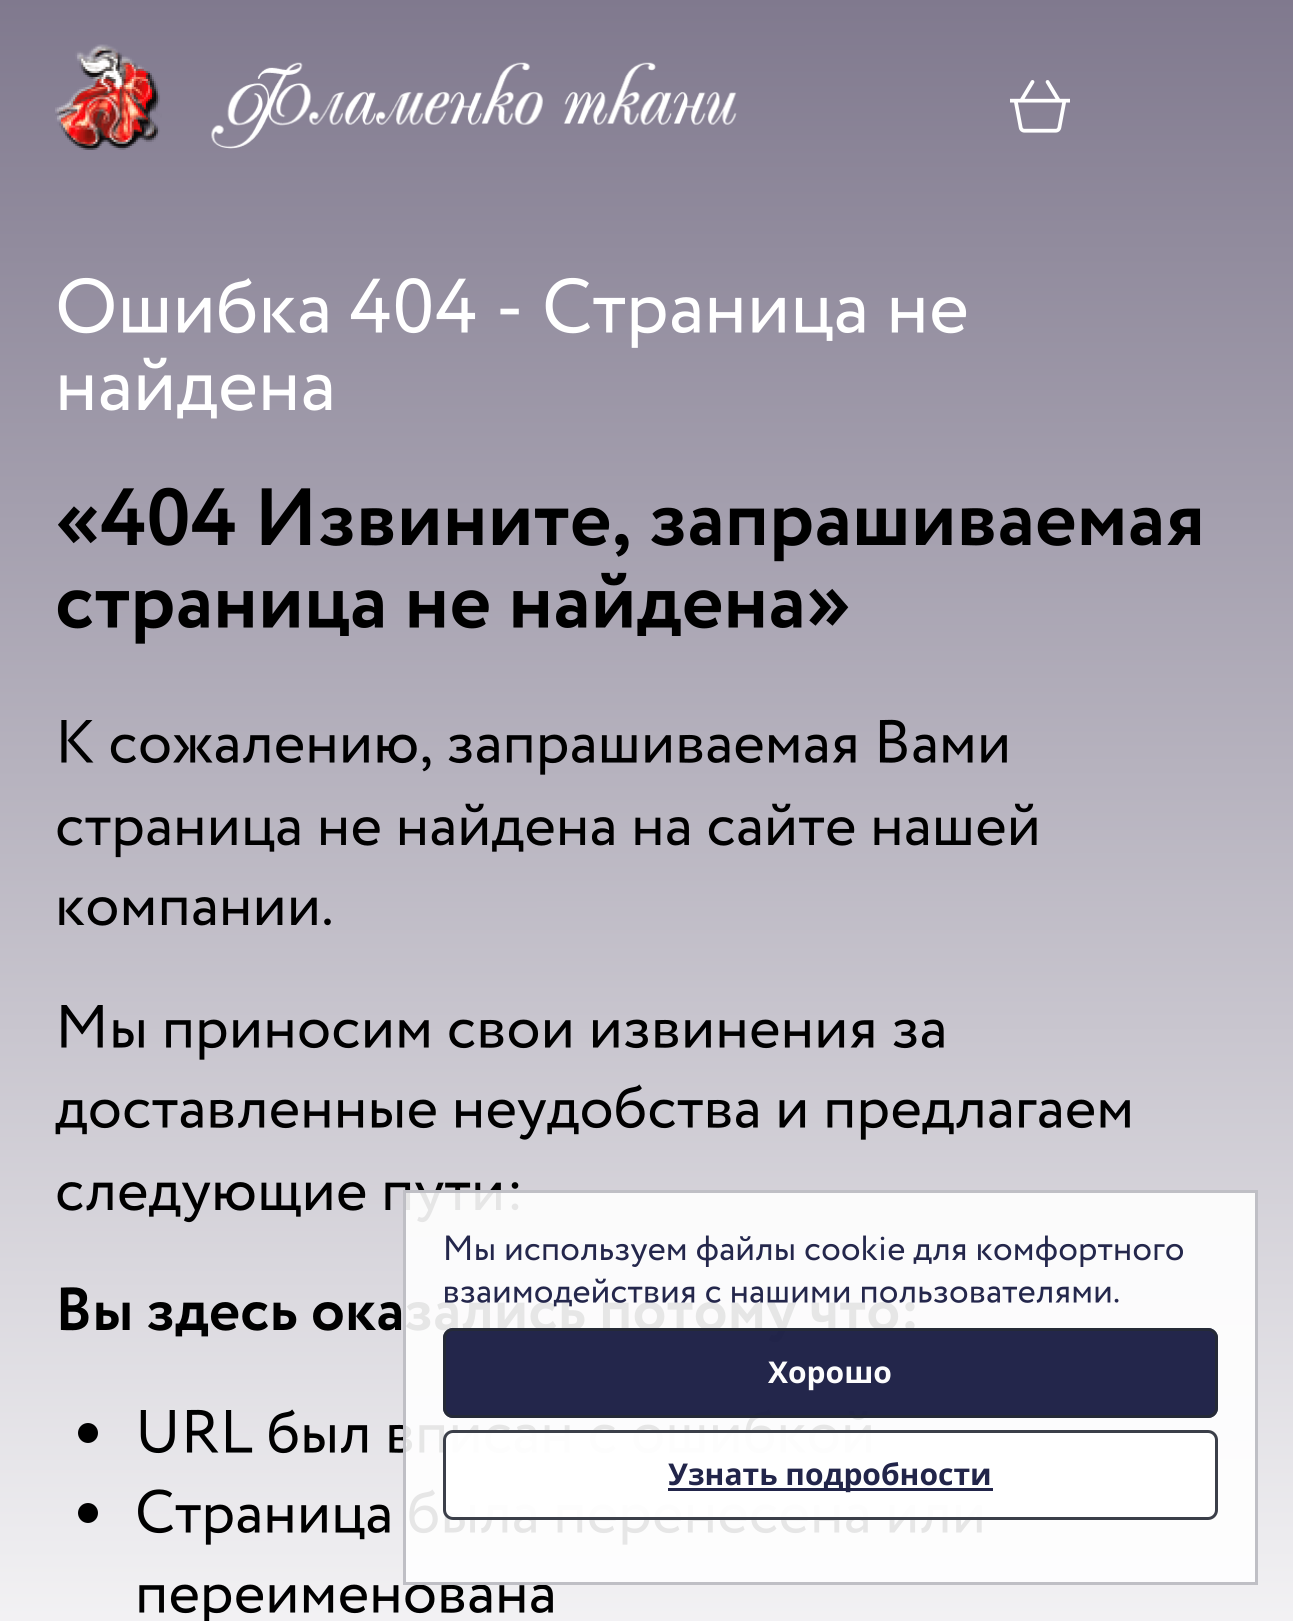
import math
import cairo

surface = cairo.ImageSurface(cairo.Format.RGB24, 1293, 1621)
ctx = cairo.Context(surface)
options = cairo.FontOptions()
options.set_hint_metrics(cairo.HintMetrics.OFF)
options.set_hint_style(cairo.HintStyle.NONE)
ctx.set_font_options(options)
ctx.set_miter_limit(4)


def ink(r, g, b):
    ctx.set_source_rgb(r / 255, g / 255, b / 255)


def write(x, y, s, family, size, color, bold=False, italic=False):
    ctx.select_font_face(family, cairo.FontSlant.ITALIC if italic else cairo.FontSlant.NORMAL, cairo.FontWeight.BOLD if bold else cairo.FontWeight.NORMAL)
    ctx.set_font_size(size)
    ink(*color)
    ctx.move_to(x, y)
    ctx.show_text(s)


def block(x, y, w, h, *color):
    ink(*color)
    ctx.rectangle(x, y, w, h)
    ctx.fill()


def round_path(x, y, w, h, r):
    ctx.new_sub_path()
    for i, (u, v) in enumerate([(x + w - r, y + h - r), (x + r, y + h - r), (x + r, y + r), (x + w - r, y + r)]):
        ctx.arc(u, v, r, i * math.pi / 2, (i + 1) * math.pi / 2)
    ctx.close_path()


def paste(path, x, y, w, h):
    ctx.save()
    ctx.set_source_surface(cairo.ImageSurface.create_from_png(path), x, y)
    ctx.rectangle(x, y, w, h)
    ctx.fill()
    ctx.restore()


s1 = dict(family="Open Sans", size=30, color=(252, 252, 252), bold=True)
s2 = dict(family="Open Sans", size=30, color=(34, 37, 74), bold=True)

ink(255, 255, 255)
ctx.paint()
gradient = cairo.LinearGradient(647, 0, 648, 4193)
gradient.add_color_stop_rgba(0, 0.502, 0.475, 0.557, 1)
gradient.add_color_stop_rgba(0.43, 1, 1, 1, 1)
ctx.set_source(gradient)
ctx.rectangle(0, 0, 1293, 1621)
ctx.fill()
paste("pic1.png", 55, 44, 682, 106)
paste("pic2.png", 1010, 80, 60, 53)
paste("pic3.png", 58, 277, 909, 71)
paste("pic4.png", 60, 357, 272, 62)
paste("pic5.png", 58, 487, 1143, 75)
paste("pic6.png", 57, 572, 792, 72)
paste("pic7.png", 61, 719, 946, 56)
paste("pic8.png", 57, 803, 980, 55)
paste("pic9.png", 59, 897, 272, 29)
paste("pic10.png", 61, 1005, 883, 55)
paste("pic11.png", 55, 1084, 1075, 56)
paste("pic12.png", 57, 1182, 462, 41)
paste("pic13.png", 60, 1287, 855, 56)
ink(0, 0, 0)
ctx.arc(88, 1433, 10, 0, 2 * math.pi)
ctx.fill()
paste("pic14.png", 140, 1409, 731, 45)
ctx.arc(88, 1513, 10, 0, 2 * math.pi)
ctx.fill()
paste("pic15.png", 138, 1489, 844, 56)
paste("pic16.png", 139, 1584, 414, 37)
ctx.set_source_rgba(1, 1, 1, 0.9)
ctx.rectangle(403, 1190, 855, 395)
ctx.fill()
ctx.rectangle(404.5, 1191.5, 852, 392)
ctx.set_source_rgba(0.722, 0.722, 0.749, 0.9)
ctx.set_line_width(3)
ctx.stroke()
paste("pic17.png", 446, 1235, 737, 32)
paste("pic18.png", 445, 1278, 674, 29)
ctx.set_source_rgba(0.047, 0.059, 0.22, 0.9)
round_path(443, 1328, 775, 90, 10)
ctx.fill()
round_path(444.5, 1329.5, 772, 87, 8.5)
ctx.set_source_rgba(0.149, 0.169, 0.212, 0.9)
ctx.stroke()
write(768, 1383, "Хорошо", **s1)
ctx.set_source_rgba(1, 1, 1, 0.9)
round_path(443, 1430, 775, 90, 10)
ctx.fill()
round_path(444.5, 1431.5, 772, 87, 8.5)
ctx.set_source_rgba(0.149, 0.169, 0.212, 0.9)
ctx.stroke()
block(668, 1488, 325, 3, 34, 37, 74)
write(668, 1485, "Узнать подробности", **s2)
surface.write_to_png("screenshot.png")
